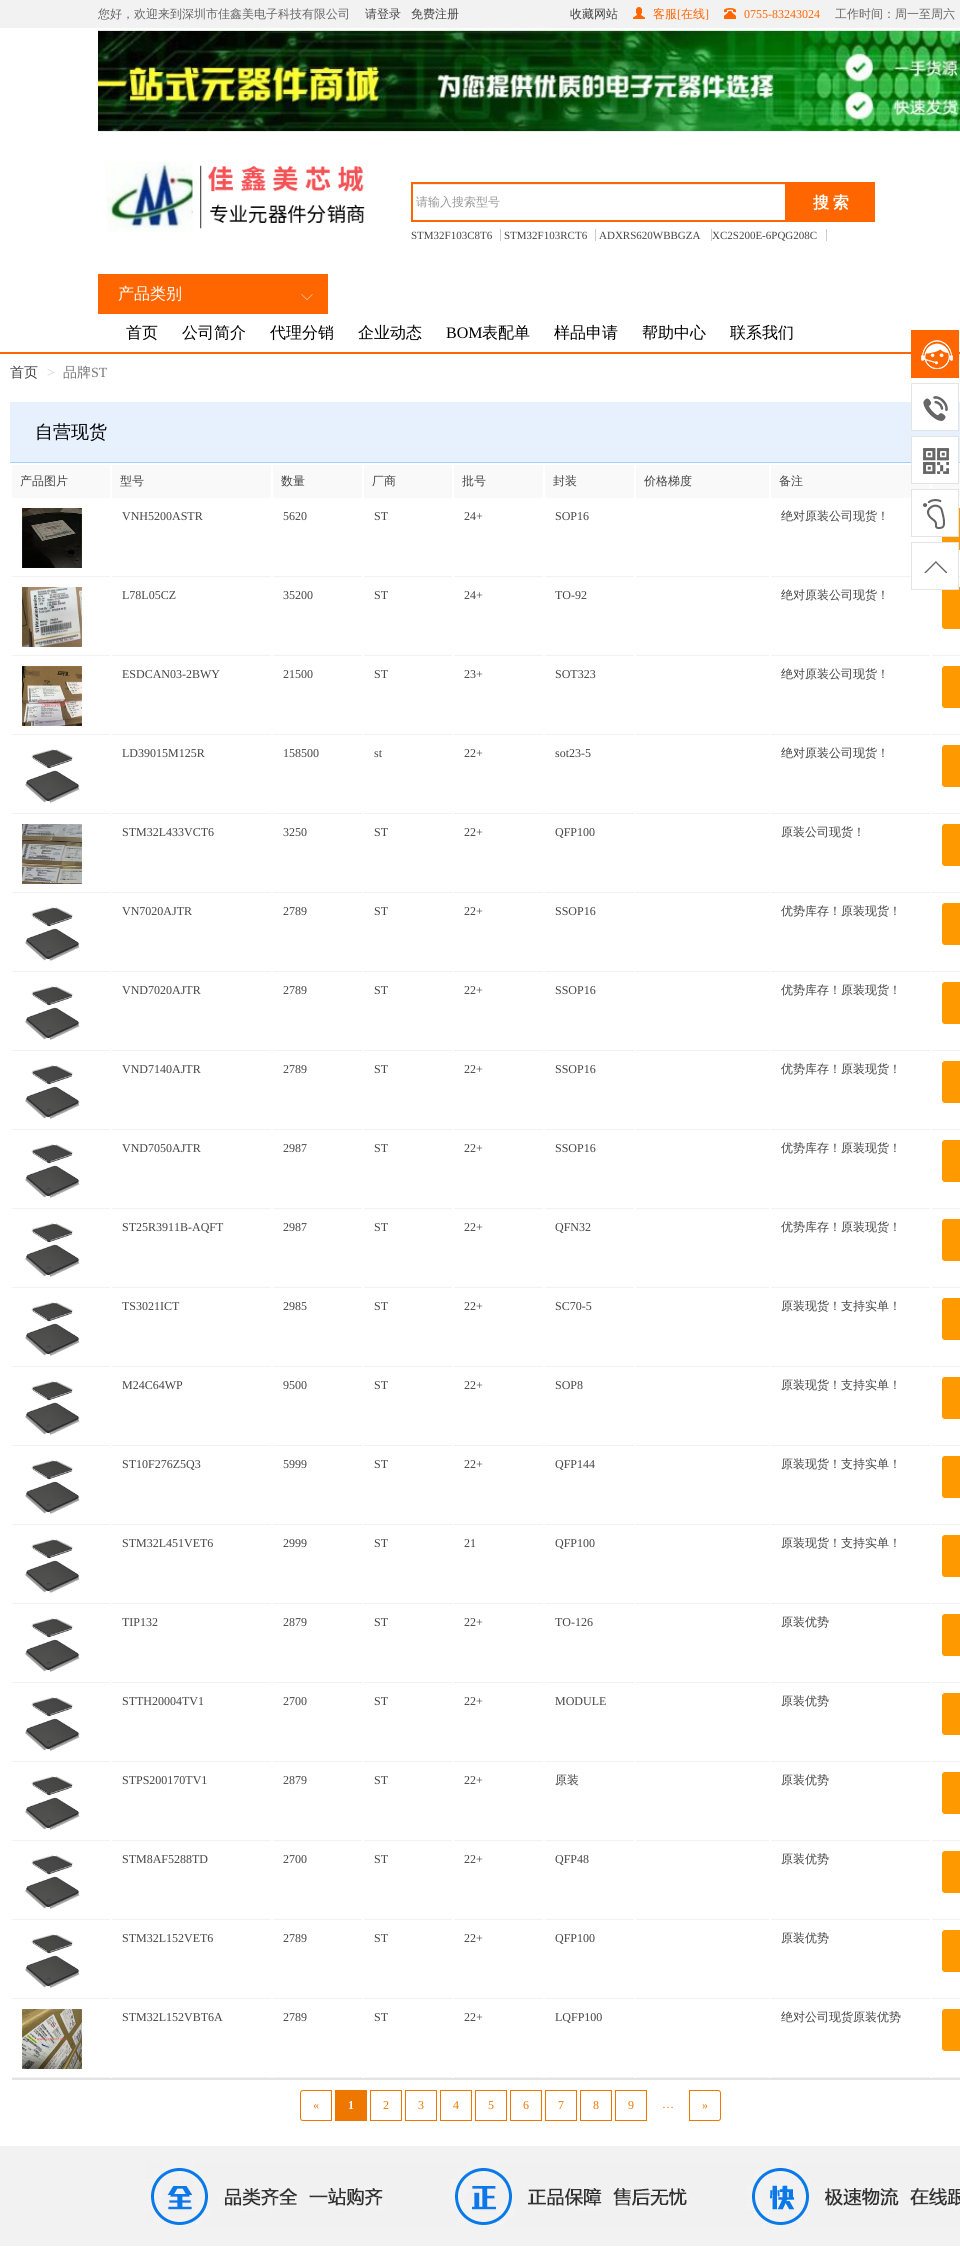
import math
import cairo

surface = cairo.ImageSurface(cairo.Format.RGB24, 960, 2261)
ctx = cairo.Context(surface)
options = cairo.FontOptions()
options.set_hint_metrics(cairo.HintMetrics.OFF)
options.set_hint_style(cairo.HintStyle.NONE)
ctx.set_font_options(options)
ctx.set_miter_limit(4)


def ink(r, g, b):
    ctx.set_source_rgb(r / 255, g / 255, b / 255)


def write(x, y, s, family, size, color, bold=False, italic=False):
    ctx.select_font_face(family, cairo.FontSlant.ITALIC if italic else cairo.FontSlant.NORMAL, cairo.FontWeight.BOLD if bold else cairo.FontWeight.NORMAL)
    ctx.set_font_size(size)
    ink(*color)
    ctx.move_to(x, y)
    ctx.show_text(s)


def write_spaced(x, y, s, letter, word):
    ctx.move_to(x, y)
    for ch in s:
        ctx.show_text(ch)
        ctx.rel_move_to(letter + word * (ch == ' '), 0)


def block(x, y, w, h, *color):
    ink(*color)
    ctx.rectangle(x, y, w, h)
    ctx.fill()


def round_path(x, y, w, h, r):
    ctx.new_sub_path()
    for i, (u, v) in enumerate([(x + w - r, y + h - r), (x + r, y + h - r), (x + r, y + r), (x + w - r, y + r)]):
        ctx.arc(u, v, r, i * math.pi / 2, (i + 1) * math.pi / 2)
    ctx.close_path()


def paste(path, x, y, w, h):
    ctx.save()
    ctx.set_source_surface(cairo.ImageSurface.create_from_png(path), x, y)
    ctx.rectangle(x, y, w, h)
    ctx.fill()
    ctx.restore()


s1 = dict(family="WenQuanYi Zen Hei Medium", size=12, color=(102, 102, 102))
s2 = dict(family="WenQuanYi Zen Hei Medium", size=12, color=(68, 68, 68))
s3 = dict(family="WenQuanYi Zen Hei Medium", size=12, color=(255, 102, 0))
s4 = dict(family="Liberation Serif", size=12, color=(255, 102, 0))
s5 = dict(family="WenQuanYi Zen Hei Medium", size=12, color=(153, 153, 153))
s6 = dict(family="Liberation Serif", size=11, color=(68, 68, 68))
s7 = dict(family="WenQuanYi Zen Hei Medium", size=16, color=(255, 255, 255))
s8 = dict(family="WenQuanYi Zen Hei Medium", size=16, color=(0, 0, 0))
s9 = dict(family="Liberation Serif", size=16, color=(0, 0, 0))
s10 = dict(family="WenQuanYi Zen Hei Medium", size=14, color=(68, 68, 68))
s11 = dict(family="Liberation Serif", size=14, color=(204, 204, 204))
s12 = dict(family="WenQuanYi Zen Hei Medium", size=14, color=(119, 119, 119))
s13 = dict(family="Liberation Serif", size=14, color=(119, 119, 119))
s14 = dict(family="WenQuanYi Zen Hei Medium", size=18, color=(0, 0, 0))
s15 = dict(family="Liberation Serif", size=12, color=(68, 68, 68))
s16 = dict(family="Liberation Serif", size=12, color=(238, 119, 0))
s17 = dict(family="Liberation Serif", size=12, color=(255, 255, 255), bold=True)

ink(255, 255, 255)
ctx.paint()
block(0, 0, 960, 28, 242, 242, 242)
write(98, 18, "您好，欢迎来到深圳市佳鑫美电子科技有限公司", **s1)
write(365, 18, "请登录", **s2)
write(411, 18, "免费注册", **s2)
write(570, 18, "收藏网站", **s2)
paste("pic1.png", 633, 7, 12, 12)
write(653, 18, "客服", **s3)
write(677, 18, "[", **s4)
write(681, 18, "在线", **s3)
write(705, 18, "]", **s4)
paste("pic2.png", 724, 8, 12, 11)
write(744, 18, "0755-83243024", **s4)
write(835, 18, "工作时间：周一至周六", **s1)
paste("pic3.png", 98, 30, 862, 102)
paste("pic4.png", 106, 162, 259, 70)
block(413, 184, 372, 1, 236, 236, 236)
ctx.rectangle(412, 183, 374, 38)
ink(255, 102, 0)
ctx.stroke()
write(416, 206, "请输入搜索型号", **s5)
block(787, 182, 88, 40, 255, 102, 0)
ctx.select_font_face("WenQuanYi Zen Hei", cairo.FontSlant.NORMAL, cairo.FontWeight.BOLD)
ctx.set_font_size(16)
ink(255, 255, 255)
write_spaced(813, 208, "搜 索", 0, -1)
write(411, 239, "STM32F103C8T6", **s6)
block(500, 229, 1, 12, 204, 204, 204)
write(504, 239, "STM32F103RCT6", **s6)
block(595, 229, 1, 12, 204, 204, 204)
write(599, 239, "ADXRS620WBBGZA", **s6)
block(711, 229, 1, 12, 204, 204, 204)
write(712, 239, "XC2S200E-6PQG208C", **s6)
block(826, 229, 1, 12, 204, 204, 204)
block(0, 352, 960, 2, 255, 102, 0)
block(98, 274, 230, 40, 255, 102, 0)
write(118, 299, "产品类别", **s7)
paste("pic5.png", 301, 294, 12, 6)
write(126, 338, "首页", **s8)
write(182, 338, "公司简介", **s8)
write(270, 338, "代理分销", **s8)
write(358, 338, "企业动态", **s8)
write(446, 338, "BOM", **s9)
write(482, 338, "表配单", **s8)
write(554, 338, "样品申请", **s8)
write(642, 338, "帮助中心", **s8)
write(730, 338, "联系我们", **s8)
write(10, 377, "首页", **s10)
write(47, 377, ">", **s11)
write(63, 377, "品牌", **s12)
write(91, 377, "ST", **s13)
block(10, 402, 950, 60, 230, 241, 253)
block(10, 462, 950, 1, 162, 207, 252)
write(35, 438, "自营现货", **s14)
block(12, 465, 98, 33, 249, 249, 249)
write(20, 485, "产品图片", **s2)
block(112, 465, 159, 33, 249, 249, 249)
write(120, 485, "型号", **s2)
block(273, 465, 89, 33, 249, 249, 249)
write(281, 485, "数量", **s2)
block(364, 465, 88, 33, 249, 249, 249)
write(372, 485, "厂商", **s2)
block(454, 465, 89, 33, 249, 249, 249)
write(462, 485, "批号", **s2)
block(545, 465, 89, 33, 249, 249, 249)
write(553, 485, "封装", **s2)
block(636, 465, 133, 33, 249, 249, 249)
write(644, 485, "价格梯度", **s2)
block(771, 465, 159, 33, 249, 249, 249)
write(779, 485, "备注", **s2)
block(932, 465, 28, 33, 249, 249, 249)
block(12, 576, 98, 1, 242, 242, 242)
paste("pic6.png", 22, 508, 60, 60)
block(112, 576, 159, 1, 242, 242, 242)
write(122, 520, "VNH5200ASTR", **s15)
block(273, 576, 89, 1, 242, 242, 242)
write(283, 520, "5620", **s15)
block(364, 576, 88, 1, 242, 242, 242)
write(374, 520, "ST", **s15)
block(454, 576, 89, 1, 242, 242, 242)
write(464, 520, "24+", **s15)
block(545, 576, 89, 1, 242, 242, 242)
write(555, 520, "SOP16", **s15)
block(771, 576, 140, 1, 242, 242, 242)
write(781, 520, "绝对原装公司现货！", **s2)
block(959, 576, 1, 1, 242, 242, 242)
ink(255, 153, 0)
ctx.rectangle(942.5, 508.5, 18, 41)
ctx.fill_preserve()
ctx.set_line_width(1)
ctx.stroke()
block(636, 576, 133, 1, 242, 242, 242)
block(12, 655, 98, 1, 242, 242, 242)
paste("pic7.png", 22, 587, 60, 60)
block(112, 655, 159, 1, 242, 242, 242)
write(122, 599, "L78L05CZ", **s15)
block(273, 655, 89, 1, 242, 242, 242)
write(283, 599, "35200", **s15)
block(364, 655, 88, 1, 242, 242, 242)
write(374, 599, "ST", **s15)
block(454, 655, 89, 1, 242, 242, 242)
write(464, 599, "24+", **s15)
block(545, 655, 89, 1, 242, 242, 242)
write(555, 599, "TO-92", **s15)
block(771, 655, 159, 1, 242, 242, 242)
write(781, 599, "绝对原装公司现货！", **s2)
block(932, 655, 28, 1, 242, 242, 242)
ink(255, 153, 0)
round_path(942.5, 587.5, 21, 41, 2.5)
ctx.fill_preserve()
ctx.stroke()
block(636, 655, 133, 1, 242, 242, 242)
block(12, 734, 98, 1, 242, 242, 242)
paste("pic8.png", 22, 666, 60, 60)
block(112, 734, 159, 1, 242, 242, 242)
write(122, 678, "ESDCAN03-2BWY", **s15)
block(273, 734, 89, 1, 242, 242, 242)
write(283, 678, "21500", **s15)
block(364, 734, 88, 1, 242, 242, 242)
write(374, 678, "ST", **s15)
block(454, 734, 89, 1, 242, 242, 242)
write(464, 678, "23+", **s15)
block(545, 734, 89, 1, 242, 242, 242)
write(555, 678, "SOT323", **s15)
block(771, 734, 159, 1, 242, 242, 242)
write(781, 678, "绝对原装公司现货！", **s2)
block(932, 734, 28, 1, 242, 242, 242)
ink(255, 153, 0)
round_path(942.5, 666.5, 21, 41, 2.5)
ctx.fill_preserve()
ctx.stroke()
block(636, 734, 133, 1, 242, 242, 242)
block(12, 813, 98, 1, 242, 242, 242)
paste("pic9.png", 25, 749, 55, 54)
block(112, 813, 159, 1, 242, 242, 242)
write(122, 757, "LD39015M125R", **s15)
block(273, 813, 89, 1, 242, 242, 242)
write(283, 757, "158500", **s15)
block(364, 813, 88, 1, 242, 242, 242)
write(374, 757, "st", **s15)
block(454, 813, 89, 1, 242, 242, 242)
write(464, 757, "22+", **s15)
block(545, 813, 89, 1, 242, 242, 242)
write(555, 757, "sot23-5", **s15)
block(771, 813, 159, 1, 242, 242, 242)
write(781, 757, "绝对原装公司现货！", **s2)
block(932, 813, 28, 1, 242, 242, 242)
ink(255, 153, 0)
round_path(942.5, 745.5, 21, 41, 2.5)
ctx.fill_preserve()
ctx.stroke()
block(636, 813, 133, 1, 242, 242, 242)
block(12, 892, 98, 1, 242, 242, 242)
paste("pic10.png", 22, 824, 60, 60)
block(112, 892, 159, 1, 242, 242, 242)
write(122, 836, "STM32L433VCT6", **s15)
block(273, 892, 89, 1, 242, 242, 242)
write(283, 836, "3250", **s15)
block(364, 892, 88, 1, 242, 242, 242)
write(374, 836, "ST", **s15)
block(454, 892, 89, 1, 242, 242, 242)
write(464, 836, "22+", **s15)
block(545, 892, 89, 1, 242, 242, 242)
write(555, 836, "QFP100", **s15)
block(771, 892, 159, 1, 242, 242, 242)
write(781, 836, "原装公司现货！", **s2)
block(932, 892, 28, 1, 242, 242, 242)
ink(255, 153, 0)
round_path(942.5, 824.5, 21, 41, 2.5)
ctx.fill_preserve()
ctx.stroke()
block(636, 892, 133, 1, 242, 242, 242)
block(12, 971, 98, 1, 242, 242, 242)
paste("pic11.png", 25, 907, 55, 54)
block(112, 971, 159, 1, 242, 242, 242)
write(122, 915, "VN7020AJTR", **s15)
block(273, 971, 89, 1, 242, 242, 242)
write(283, 915, "2789", **s15)
block(364, 971, 88, 1, 242, 242, 242)
write(374, 915, "ST", **s15)
block(454, 971, 89, 1, 242, 242, 242)
write(464, 915, "22+", **s15)
block(545, 971, 89, 1, 242, 242, 242)
write(555, 915, "SSOP16", **s15)
block(771, 971, 159, 1, 242, 242, 242)
write(781, 915, "优势库存！原装现货！", **s2)
block(932, 971, 28, 1, 242, 242, 242)
ink(255, 153, 0)
round_path(942.5, 903.5, 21, 41, 2.5)
ctx.fill_preserve()
ctx.stroke()
block(636, 971, 133, 1, 242, 242, 242)
block(12, 1050, 98, 1, 242, 242, 242)
paste("pic9.png", 25, 986, 55, 54)
block(112, 1050, 159, 1, 242, 242, 242)
write(122, 994, "VND7020AJTR", **s15)
block(273, 1050, 89, 1, 242, 242, 242)
write(283, 994, "2789", **s15)
block(364, 1050, 88, 1, 242, 242, 242)
write(374, 994, "ST", **s15)
block(454, 1050, 89, 1, 242, 242, 242)
write(464, 994, "22+", **s15)
block(545, 1050, 89, 1, 242, 242, 242)
write(555, 994, "SSOP16", **s15)
block(771, 1050, 159, 1, 242, 242, 242)
write(781, 994, "优势库存！原装现货！", **s2)
block(932, 1050, 28, 1, 242, 242, 242)
ink(255, 153, 0)
round_path(942.5, 982.5, 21, 41, 2.5)
ctx.fill_preserve()
ctx.stroke()
block(636, 1050, 133, 1, 242, 242, 242)
block(12, 1129, 98, 1, 242, 242, 242)
paste("pic11.png", 25, 1065, 55, 54)
block(112, 1129, 159, 1, 242, 242, 242)
write(122, 1073, "VND7140AJTR", **s15)
block(273, 1129, 89, 1, 242, 242, 242)
write(283, 1073, "2789", **s15)
block(364, 1129, 88, 1, 242, 242, 242)
write(374, 1073, "ST", **s15)
block(454, 1129, 89, 1, 242, 242, 242)
write(464, 1073, "22+", **s15)
block(545, 1129, 89, 1, 242, 242, 242)
write(555, 1073, "SSOP16", **s15)
block(771, 1129, 159, 1, 242, 242, 242)
write(781, 1073, "优势库存！原装现货！", **s2)
block(932, 1129, 28, 1, 242, 242, 242)
ink(255, 153, 0)
round_path(942.5, 1061.5, 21, 41, 2.5)
ctx.fill_preserve()
ctx.stroke()
block(636, 1129, 133, 1, 242, 242, 242)
block(12, 1208, 98, 1, 242, 242, 242)
paste("pic11.png", 25, 1144, 55, 54)
block(112, 1208, 159, 1, 242, 242, 242)
write(122, 1152, "VND7050AJTR", **s15)
block(273, 1208, 89, 1, 242, 242, 242)
write(283, 1152, "2987", **s15)
block(364, 1208, 88, 1, 242, 242, 242)
write(374, 1152, "ST", **s15)
block(454, 1208, 89, 1, 242, 242, 242)
write(464, 1152, "22+", **s15)
block(545, 1208, 89, 1, 242, 242, 242)
write(555, 1152, "SSOP16", **s15)
block(771, 1208, 159, 1, 242, 242, 242)
write(781, 1152, "优势库存！原装现货！", **s2)
block(932, 1208, 28, 1, 242, 242, 242)
ink(255, 153, 0)
round_path(942.5, 1140.5, 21, 41, 2.5)
ctx.fill_preserve()
ctx.stroke()
block(636, 1208, 133, 1, 242, 242, 242)
block(12, 1287, 98, 1, 242, 242, 242)
paste("pic11.png", 25, 1223, 55, 54)
block(112, 1287, 159, 1, 242, 242, 242)
write(122, 1231, "ST25R3911B-AQFT", **s15)
block(273, 1287, 89, 1, 242, 242, 242)
write(283, 1231, "2987", **s15)
block(364, 1287, 88, 1, 242, 242, 242)
write(374, 1231, "ST", **s15)
block(454, 1287, 89, 1, 242, 242, 242)
write(464, 1231, "22+", **s15)
block(545, 1287, 89, 1, 242, 242, 242)
write(555, 1231, "QFN32", **s15)
block(771, 1287, 159, 1, 242, 242, 242)
write(781, 1231, "优势库存！原装现货！", **s2)
block(932, 1287, 28, 1, 242, 242, 242)
ink(255, 153, 0)
round_path(942.5, 1219.5, 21, 41, 2.5)
ctx.fill_preserve()
ctx.stroke()
block(636, 1287, 133, 1, 242, 242, 242)
block(12, 1366, 98, 1, 242, 242, 242)
paste("pic12.png", 25, 1302, 55, 54)
block(112, 1366, 159, 1, 242, 242, 242)
write(122, 1310, "TS3021ICT", **s15)
block(273, 1366, 89, 1, 242, 242, 242)
write(283, 1310, "2985", **s15)
block(364, 1366, 88, 1, 242, 242, 242)
write(374, 1310, "ST", **s15)
block(454, 1366, 89, 1, 242, 242, 242)
write(464, 1310, "22+", **s15)
block(545, 1366, 89, 1, 242, 242, 242)
write(555, 1310, "SC70-5", **s15)
block(771, 1366, 159, 1, 242, 242, 242)
write(781, 1310, "原装现货！支持实单！", **s2)
block(932, 1366, 28, 1, 242, 242, 242)
ink(255, 153, 0)
round_path(942.5, 1298.5, 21, 41, 2.5)
ctx.fill_preserve()
ctx.stroke()
block(636, 1366, 133, 1, 242, 242, 242)
block(12, 1445, 98, 1, 242, 242, 242)
paste("pic12.png", 25, 1381, 55, 54)
block(112, 1445, 159, 1, 242, 242, 242)
write(122, 1389, "M24C64WP", **s15)
block(273, 1445, 89, 1, 242, 242, 242)
write(283, 1389, "9500", **s15)
block(364, 1445, 88, 1, 242, 242, 242)
write(374, 1389, "ST", **s15)
block(454, 1445, 89, 1, 242, 242, 242)
write(464, 1389, "22+", **s15)
block(545, 1445, 89, 1, 242, 242, 242)
write(555, 1389, "SOP8", **s15)
block(771, 1445, 159, 1, 242, 242, 242)
write(781, 1389, "原装现货！支持实单！", **s2)
block(932, 1445, 28, 1, 242, 242, 242)
ink(255, 153, 0)
round_path(942.5, 1377.5, 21, 41, 2.5)
ctx.fill_preserve()
ctx.stroke()
block(636, 1445, 133, 1, 242, 242, 242)
block(12, 1524, 98, 1, 242, 242, 242)
paste("pic11.png", 25, 1460, 55, 54)
block(112, 1524, 159, 1, 242, 242, 242)
write(122, 1468, "ST10F276Z5Q3", **s15)
block(273, 1524, 89, 1, 242, 242, 242)
write(283, 1468, "5999", **s15)
block(364, 1524, 88, 1, 242, 242, 242)
write(374, 1468, "ST", **s15)
block(454, 1524, 89, 1, 242, 242, 242)
write(464, 1468, "22+", **s15)
block(545, 1524, 89, 1, 242, 242, 242)
write(555, 1468, "QFP144", **s15)
block(771, 1524, 159, 1, 242, 242, 242)
write(781, 1468, "原装现货！支持实单！", **s2)
block(932, 1524, 28, 1, 242, 242, 242)
ink(255, 153, 0)
round_path(942.5, 1456.5, 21, 41, 2.5)
ctx.fill_preserve()
ctx.stroke()
block(636, 1524, 133, 1, 242, 242, 242)
block(12, 1603, 98, 1, 242, 242, 242)
paste("pic13.png", 25, 1539, 55, 54)
block(112, 1603, 159, 1, 242, 242, 242)
write(122, 1547, "STM32L451VET6", **s15)
block(273, 1603, 89, 1, 242, 242, 242)
write(283, 1547, "2999", **s15)
block(364, 1603, 88, 1, 242, 242, 242)
write(374, 1547, "ST", **s15)
block(454, 1603, 89, 1, 242, 242, 242)
write(464, 1547, "21", **s15)
block(545, 1603, 89, 1, 242, 242, 242)
write(555, 1547, "QFP100", **s15)
block(771, 1603, 159, 1, 242, 242, 242)
write(781, 1547, "原装现货！支持实单！", **s2)
block(932, 1603, 28, 1, 242, 242, 242)
ink(255, 153, 0)
round_path(942.5, 1535.5, 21, 41, 2.5)
ctx.fill_preserve()
ctx.stroke()
block(636, 1603, 133, 1, 242, 242, 242)
block(12, 1682, 98, 1, 242, 242, 242)
paste("pic11.png", 25, 1618, 55, 54)
block(112, 1682, 159, 1, 242, 242, 242)
write(122, 1626, "TIP132", **s15)
block(273, 1682, 89, 1, 242, 242, 242)
write(283, 1626, "2879", **s15)
block(364, 1682, 88, 1, 242, 242, 242)
write(374, 1626, "ST", **s15)
block(454, 1682, 89, 1, 242, 242, 242)
write(464, 1626, "22+", **s15)
block(545, 1682, 89, 1, 242, 242, 242)
write(555, 1626, "TO-126", **s15)
block(771, 1682, 159, 1, 242, 242, 242)
write(781, 1626, "原装优势", **s2)
block(932, 1682, 28, 1, 242, 242, 242)
ink(255, 153, 0)
round_path(942.5, 1614.5, 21, 41, 2.5)
ctx.fill_preserve()
ctx.stroke()
block(636, 1682, 133, 1, 242, 242, 242)
block(12, 1761, 98, 1, 242, 242, 242)
paste("pic11.png", 25, 1697, 55, 54)
block(112, 1761, 159, 1, 242, 242, 242)
write(122, 1705, "STTH20004TV1", **s15)
block(273, 1761, 89, 1, 242, 242, 242)
write(283, 1705, "2700", **s15)
block(364, 1761, 88, 1, 242, 242, 242)
write(374, 1705, "ST", **s15)
block(454, 1761, 89, 1, 242, 242, 242)
write(464, 1705, "22+", **s15)
block(545, 1761, 89, 1, 242, 242, 242)
write(555, 1705, "MODULE", **s15)
block(771, 1761, 159, 1, 242, 242, 242)
write(781, 1705, "原装优势", **s2)
block(932, 1761, 28, 1, 242, 242, 242)
ink(255, 153, 0)
round_path(942.5, 1693.5, 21, 41, 2.5)
ctx.fill_preserve()
ctx.stroke()
block(636, 1761, 133, 1, 242, 242, 242)
block(12, 1840, 98, 1, 242, 242, 242)
paste("pic11.png", 25, 1776, 55, 54)
block(112, 1840, 159, 1, 242, 242, 242)
write(122, 1784, "STPS200170TV1", **s15)
block(273, 1840, 89, 1, 242, 242, 242)
write(283, 1784, "2879", **s15)
block(364, 1840, 88, 1, 242, 242, 242)
write(374, 1784, "ST", **s15)
block(454, 1840, 89, 1, 242, 242, 242)
write(464, 1784, "22+", **s15)
block(545, 1840, 89, 1, 242, 242, 242)
write(555, 1784, "原装", **s2)
block(771, 1840, 159, 1, 242, 242, 242)
write(781, 1784, "原装优势", **s2)
block(932, 1840, 28, 1, 242, 242, 242)
ink(255, 153, 0)
round_path(942.5, 1772.5, 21, 41, 2.5)
ctx.fill_preserve()
ctx.stroke()
block(636, 1840, 133, 1, 242, 242, 242)
block(12, 1919, 98, 1, 242, 242, 242)
paste("pic14.png", 25, 1855, 55, 54)
block(112, 1919, 159, 1, 242, 242, 242)
write(122, 1863, "STM8AF5288TD", **s15)
block(273, 1919, 89, 1, 242, 242, 242)
write(283, 1863, "2700", **s15)
block(364, 1919, 88, 1, 242, 242, 242)
write(374, 1863, "ST", **s15)
block(454, 1919, 89, 1, 242, 242, 242)
write(464, 1863, "22+", **s15)
block(545, 1919, 89, 1, 242, 242, 242)
write(555, 1863, "QFP48", **s15)
block(771, 1919, 159, 1, 242, 242, 242)
write(781, 1863, "原装优势", **s2)
block(932, 1919, 28, 1, 242, 242, 242)
ink(255, 153, 0)
round_path(942.5, 1851.5, 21, 41, 2.5)
ctx.fill_preserve()
ctx.stroke()
block(636, 1919, 133, 1, 242, 242, 242)
block(12, 1998, 98, 1, 242, 242, 242)
paste("pic14.png", 25, 1934, 55, 54)
block(112, 1998, 159, 1, 242, 242, 242)
write(122, 1942, "STM32L152VET6", **s15)
block(273, 1998, 89, 1, 242, 242, 242)
write(283, 1942, "2789", **s15)
block(364, 1998, 88, 1, 242, 242, 242)
write(374, 1942, "ST", **s15)
block(454, 1998, 89, 1, 242, 242, 242)
write(464, 1942, "22+", **s15)
block(545, 1998, 89, 1, 242, 242, 242)
write(555, 1942, "QFP100", **s15)
block(771, 1998, 159, 1, 242, 242, 242)
write(781, 1942, "原装优势", **s2)
block(932, 1998, 28, 1, 242, 242, 242)
ink(255, 153, 0)
round_path(942.5, 1930.5, 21, 41, 2.5)
ctx.fill_preserve()
ctx.stroke()
block(636, 1998, 133, 1, 242, 242, 242)
block(12, 2077, 98, 1, 242, 242, 242)
paste("pic15.png", 22, 2009, 60, 60)
block(112, 2077, 159, 1, 242, 242, 242)
write(122, 2021, "STM32L152VBT6A", **s15)
block(273, 2077, 89, 1, 242, 242, 242)
write(283, 2021, "2789", **s15)
block(364, 2077, 88, 1, 242, 242, 242)
write(374, 2021, "ST", **s15)
block(454, 2077, 89, 1, 242, 242, 242)
write(464, 2021, "22+", **s15)
block(545, 2077, 89, 1, 242, 242, 242)
write(555, 2021, "LQFP100", **s15)
block(771, 2077, 159, 1, 242, 242, 242)
write(781, 2021, "绝对公司现货原装优势", **s2)
block(932, 2077, 28, 1, 242, 242, 242)
ink(255, 153, 0)
round_path(942.5, 2009.5, 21, 41, 2.5)
ctx.fill_preserve()
ctx.stroke()
block(636, 2077, 133, 1, 242, 242, 242)
block(12, 2078, 948, 2, 228, 228, 228)
ctx.new_path()
ctx.move_to(303, 2090.5)
ctx.line_to(331.5, 2090.5)
ctx.line_to(331.5, 2120.5)
ctx.line_to(303, 2120.5)
ctx.curve_to(301.5, 2120.5, 300.5, 2119.5, 300.5, 2118)
ctx.line_to(300.5, 2093)
ctx.curve_to(300.5, 2091.5, 301.5, 2090.5, 303, 2090.5)
ctx.close_path()
ink(238, 119, 0)
ctx.stroke()
write(313, 2109, "«", **s16)
block(335, 2090, 32, 31, 238, 119, 0)
write(348, 2109, "1", **s17)
ctx.rectangle(370.5, 2090.5, 31, 30)
ink(238, 119, 0)
ctx.stroke()
write(383, 2109, "2", **s16)
ctx.rectangle(405.5, 2090.5, 31, 30)
ctx.stroke()
write(418, 2109, "3", **s16)
ctx.rectangle(440.5, 2090.5, 31, 30)
ctx.stroke()
write(453, 2109, "4", **s16)
ctx.rectangle(475.5, 2090.5, 31, 30)
ctx.stroke()
write(488, 2109, "5", **s16)
ctx.rectangle(510.5, 2090.5, 31, 30)
ctx.stroke()
write(523, 2109, "6", **s16)
ctx.rectangle(545.5, 2090.5, 31, 30)
ctx.stroke()
write(558, 2109, "7", **s16)
ctx.rectangle(580.5, 2090.5, 31, 30)
ctx.stroke()
write(593, 2109, "8", **s16)
ctx.rectangle(615.5, 2090.5, 31, 30)
ctx.stroke()
write(628, 2109, "9", **s16)
write(662, 2108, "…", **s16)
ctx.new_path()
ctx.move_to(689.5, 2090.5)
ctx.line_to(718, 2090.5)
ctx.curve_to(719.5, 2090.5, 720.5, 2091.5, 720.5, 2093)
ctx.line_to(720.5, 2118)
ctx.curve_to(720.5, 2119.5, 719.5, 2120.5, 718, 2120.5)
ctx.line_to(689.5, 2120.5)
ctx.close_path()
ctx.stroke()
write(702, 2109, "»", **s16)
block(911, 330, 48, 48, 255, 102, 0)
paste("pic16.png", 921, 340, 32, 29)
block(912, 402, 46, 28, 255, 255, 255)
paste("pic17.png", 923, 396, 25, 25)
ctx.rectangle(911.5, 383.5, 47, 47)
ink(228, 228, 228)
ctx.stroke()
block(912, 437, 46, 46, 255, 255, 255)
paste("pic18.png", 923, 448, 26, 26)
ctx.rectangle(911.5, 436.5, 47, 47)
ink(228, 228, 228)
ctx.stroke()
block(912, 490, 46, 46, 255, 255, 255)
paste("pic19.png", 923, 499, 22, 30)
ctx.rectangle(911.5, 489.5, 47, 47)
ink(228, 228, 228)
ctx.stroke()
block(942, 543, 16, 46, 255, 255, 255)
paste("pic20.png", 924, 561, 23, 12)
ctx.rectangle(911.5, 542.5, 47, 47)
ink(228, 228, 228)
ctx.stroke()
block(0, 2146, 960, 100, 242, 242, 242)
paste("pic21.png", 146, 2162, 814, 64)
surface.write_to_png("screenshot.png")
